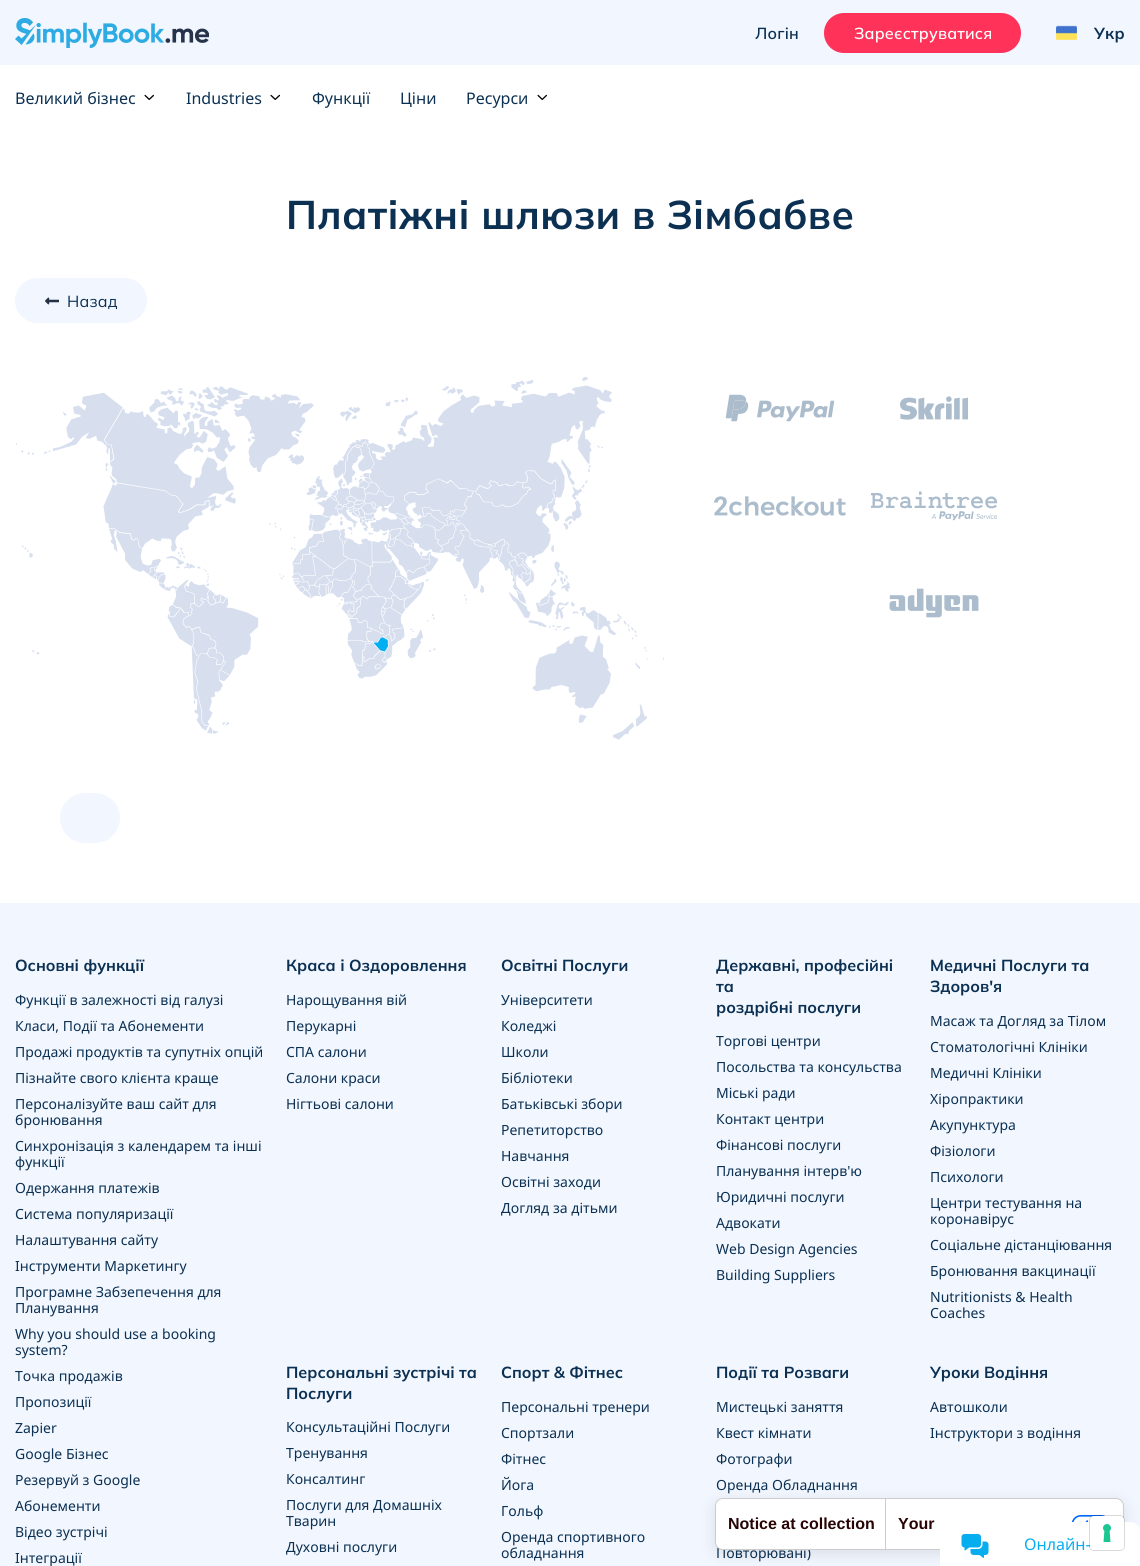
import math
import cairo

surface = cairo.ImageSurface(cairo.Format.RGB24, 1140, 1566)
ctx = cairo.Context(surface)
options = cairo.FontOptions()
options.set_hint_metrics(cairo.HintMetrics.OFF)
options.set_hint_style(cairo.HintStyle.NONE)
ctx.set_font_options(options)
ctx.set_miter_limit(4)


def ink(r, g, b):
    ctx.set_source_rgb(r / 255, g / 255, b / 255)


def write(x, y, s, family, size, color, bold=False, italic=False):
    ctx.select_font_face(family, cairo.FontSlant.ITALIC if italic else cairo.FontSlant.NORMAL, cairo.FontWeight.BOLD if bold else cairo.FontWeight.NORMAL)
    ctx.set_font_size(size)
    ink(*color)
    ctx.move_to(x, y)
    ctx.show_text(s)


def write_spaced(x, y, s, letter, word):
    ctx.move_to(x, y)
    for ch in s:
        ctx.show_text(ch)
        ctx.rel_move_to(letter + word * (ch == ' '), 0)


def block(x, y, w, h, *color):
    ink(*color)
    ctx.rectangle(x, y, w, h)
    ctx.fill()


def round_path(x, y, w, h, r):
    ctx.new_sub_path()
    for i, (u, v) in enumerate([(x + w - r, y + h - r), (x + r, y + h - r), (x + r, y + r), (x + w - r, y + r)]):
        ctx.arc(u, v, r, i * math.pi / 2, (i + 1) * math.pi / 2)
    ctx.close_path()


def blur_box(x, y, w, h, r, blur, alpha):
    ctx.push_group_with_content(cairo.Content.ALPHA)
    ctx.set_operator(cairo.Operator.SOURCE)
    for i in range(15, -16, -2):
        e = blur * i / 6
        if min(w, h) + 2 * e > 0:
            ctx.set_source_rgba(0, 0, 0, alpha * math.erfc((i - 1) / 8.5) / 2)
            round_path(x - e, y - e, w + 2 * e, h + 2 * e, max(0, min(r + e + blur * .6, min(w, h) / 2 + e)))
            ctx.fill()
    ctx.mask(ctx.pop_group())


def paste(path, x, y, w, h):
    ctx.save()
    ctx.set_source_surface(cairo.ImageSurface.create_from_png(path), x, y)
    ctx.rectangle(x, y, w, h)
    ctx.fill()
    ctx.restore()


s1 = dict(family="Noto Sans", size=16, color=(11, 48, 82))
s2 = dict(family="Mulish", size=16, color=(11, 48, 82), bold=True)
s3 = dict(family="Noto Sans", size=14, color=(11, 48, 82))
s4 = dict(family="Liberation Sans", size=16, color=(40, 4, 4), bold=True)
s5 = dict(family="Noto Sans", size=16, color=(6, 173, 239))

ink(255, 255, 255)
ctx.paint()
block(0, 0, 1140, 65, 241, 246, 255)
paste("pic1.png", 15, 18, 194, 30)
ctx.select_font_face("Mulish SemiBold")
ctx.set_font_size(16)
ink(11, 48, 82)
write_spaced(755, 39, "Логін", 0.2, 0)
ink(255, 50, 89)
round_path(824, 13, 197, 40, 20)
ctx.fill()
ink(255, 255, 255)
write_spaced(854, 39, "Зареєструватися", 0.2, 0)
paste("pic2.png", 1056, 25, 21, 15)
ctx.select_font_face("Mulish", cairo.FontSlant.NORMAL, cairo.FontWeight.BOLD)
ink(11, 48, 82)
write_spaced(1094, 39, "Укр", 0.2, 0)
write(15, 104, "Великий бізнес", **s1)
paste("pic3.png", 144, 94, 10, 6)
write(186, 104, "Industries", **s1)
paste("pic3.png", 270, 94, 10, 6)
write(312, 104, "Функції", **s1)
write(400, 104, "Ціни", **s1)
write(466, 104, "Ресурси", **s1)
paste("pic3.png", 537, 94, 10, 6)
ctx.select_font_face("Mulish", cairo.FontSlant.NORMAL, cairo.FontWeight.BOLD)
ctx.set_font_size(40)
write_spaced(286, 229, "Платіжні шлюзи в Зімбабве", 0.4, 0)
ink(241, 246, 255)
round_path(15, 278, 132, 45, 22.5)
ctx.fill()
paste("pic4.png", 45, 297, 14, 8)
ctx.select_font_face("Mulish")
ctx.set_font_size(16)
ink(11, 48, 82)
write_spaced(67, 307, "Назад", 0.2, 0)
paste("pic5.png", 16, 376, 648, 364)
paste("pic6.png", 725, 394, 110, 28)
paste("pic7.png", 900, 396, 68, 24)
paste("pic8.png", 714, 496, 132, 20)
paste("pic9.png", 871, 491, 127, 30)
paste("pic10.png", 889, 588, 90, 30)
ink(242, 247, 255)
round_path(60, 793, 60, 50, 25)
ctx.fill()
block(0, 903, 1140, 663, 241, 246, 255)
write(15, 971, "Основні функції", **s2)
write(15, 1005, "Функції в залежності від галузі", **s3)
write(15, 1031, "Класи, Події та Абонементи", **s3)
write(15, 1057, "Продажі продуктів та супутніх опцій", **s3)
write(15, 1083, "Пізнайте свого клієнта краще", **s3)
write(15, 1109, "Персоналізуйте ваш сайт для", **s3)
write(15, 1125, "бронювання", **s3)
write(15, 1151, "Синхронізація з календарем та інші", **s3)
write(15, 1167, "функції", **s3)
write(15, 1193, "Одержання платежів", **s3)
write(15, 1219, "Система популяризації", **s3)
write(15, 1245, "Налаштування сайту", **s3)
write(15, 1271, "Інструменти Маркетингу", **s3)
write(15, 1297, "Програмне Забзепечення для", **s3)
write(15, 1313, "Планування", **s3)
write(15, 1339, "Why you should use a booking", **s3)
write(15, 1355, "system?", **s3)
write(15, 1381, "Точка продажів", **s3)
write(15, 1407, "Пропозиції", **s3)
write(15, 1433, "Zapier", **s3)
write(15, 1459, "Google Бізнес", **s3)
write(15, 1485, "Резервуй з Google", **s3)
write(15, 1511, "Абонементи", **s3)
write(15, 1537, "Відео зустрічі", **s3)
write(15, 1563, "Інтеграції", **s3)
write(286, 971, "Краса і Оздоровлення", **s2)
write(286, 1005, "Нарощування вій", **s3)
write(286, 1031, "Перукарні", **s3)
write(286, 1057, "СПА салони", **s3)
write(286, 1083, "Салони краси", **s3)
write(286, 1109, "Нігтьові салони", **s3)
write(501, 971, "Освітні Послуги", **s2)
write(501, 1005, "Університети", **s3)
write(501, 1031, "Коледжі", **s3)
write(501, 1057, "Школи", **s3)
write(501, 1083, "Бібліотеки", **s3)
write(501, 1109, "Батьківські збори", **s3)
write(501, 1135, "Репетиторство", **s3)
write(501, 1161, "Навчання", **s3)
write(501, 1187, "Освітні заходи", **s3)
write(501, 1213, "Догляд за дітьми", **s3)
write(716, 971, "Державні, професійні", **s2)
write(716, 992, "та", **s2)
write(716, 1013, "роздрібні послуги", **s2)
write(716, 1046, "Торгові центри", **s3)
write(716, 1072, "Посольства та консульства", **s3)
write(716, 1098, "Міські ради", **s3)
write(716, 1124, "Контакт центри", **s3)
write(716, 1150, "Фінансові послуги", **s3)
write(716, 1176, "Планування інтерв'ю", **s3)
write(716, 1202, "Юридичні послуги", **s3)
write(716, 1228, "Адвокати", **s3)
write(716, 1254, "Web Design Agencies", **s3)
write(716, 1280, "Building Suppliers", **s3)
write(930, 971, "Медичні Послуги та", **s2)
write(930, 992, "Здоров'я", **s2)
write(930, 1026, "Масаж та Догляд за Тілом", **s3)
write(930, 1052, "Стоматологічні Клініки", **s3)
write(930, 1078, "Медичні Клініки", **s3)
write(930, 1104, "Хіропрактики", **s3)
write(930, 1130, "Акупунктура", **s3)
write(930, 1156, "Фізіологи", **s3)
write(930, 1182, "Психологи", **s3)
write(930, 1208, "Центри тестування на", **s3)
write(930, 1224, "коронавірус", **s3)
write(930, 1250, "Соціальне дістанціювання", **s3)
write(930, 1276, "Бронювання вакцинації", **s3)
write(930, 1302, "Nutritionists & Health", **s3)
write(930, 1318, "Coaches", **s3)
write(286, 1378, "Персональні зустрічі та", **s2)
write(286, 1399, "Послуги", **s2)
write(286, 1432, "Консультаційні Послуги", **s3)
write(286, 1458, "Тренування", **s3)
write(286, 1484, "Консалтинг", **s3)
write(286, 1510, "Послуги для Домашніх", **s3)
write(286, 1526, "Тварин", **s3)
write(286, 1552, "Духовні послуги", **s3)
write(501, 1378, "Спорт & Фітнес", **s2)
write(501, 1412, "Персональні тренери", **s3)
write(501, 1438, "Спортзали", **s3)
write(501, 1464, "Фітнес", **s3)
write(501, 1490, "Йога", **s3)
write(501, 1516, "Гольф", **s3)
write(501, 1542, "Оренда спортивного", **s3)
write(501, 1558, "обладнання", **s3)
write(716, 1378, "Події та Розваги", **s2)
write(716, 1412, "Мистецькі заняття", **s3)
write(716, 1438, "Квест кімнати", **s3)
write(716, 1464, "Фотографи", **s3)
write(716, 1490, "Оренда Обладнання", **s3)
write(716, 1558, "Повторювані)", **s3)
write(930, 1378, "Уроки Водіння", **s2)
write(930, 1412, "Автошколи", **s3)
write(930, 1438, "Інструктори з водіння", **s3)
ink(0, 0, 0)
blur_box(715, 1502, 409, 52, 8, 8, 0.1)
ink(255, 255, 255)
round_path(715, 1498, 409, 52, 8)
ctx.fill()
round_path(715.5, 1498.5, 408, 51, 7.5)
ctx.set_source_rgba(0, 0, 0, 0.2)
ctx.set_line_width(1)
ctx.stroke()
write(728, 1529, "Notice at collection", **s4)
block(885, 1499, 1, 50, 204, 204, 204)
write(898, 1529, "Your", **s4)
paste("pic11.png", 1071, 1515, 34, 7)
ink(255, 255, 255)
ctx.new_path()
ctx.move_to(950, 1522)
ctx.line_to(1130, 1522)
ctx.curve_to(1135.5, 1522, 1140, 1526.5, 1140, 1532)
ctx.line_to(1140, 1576)
ctx.line_to(940, 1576)
ctx.line_to(940, 1532)
ctx.curve_to(940, 1526.5, 944.5, 1522, 950, 1522)
ctx.close_path()
ctx.fill()
write(1024, 1550, "Онлайн-", **s5)
round_path(1089.5, 1515.5, 35, 35, 4.5)
ctx.set_source_rgba(0, 0, 0, 0.15)
ctx.stroke()
ink(255, 255, 255)
round_path(1090, 1516, 34, 34, 4)
ctx.fill()
paste("pic12.png", 1103, 1524, 8, 18)
paste("pic13.png", 961, 1534, 28, 24)
surface.write_to_png("screenshot.png")
